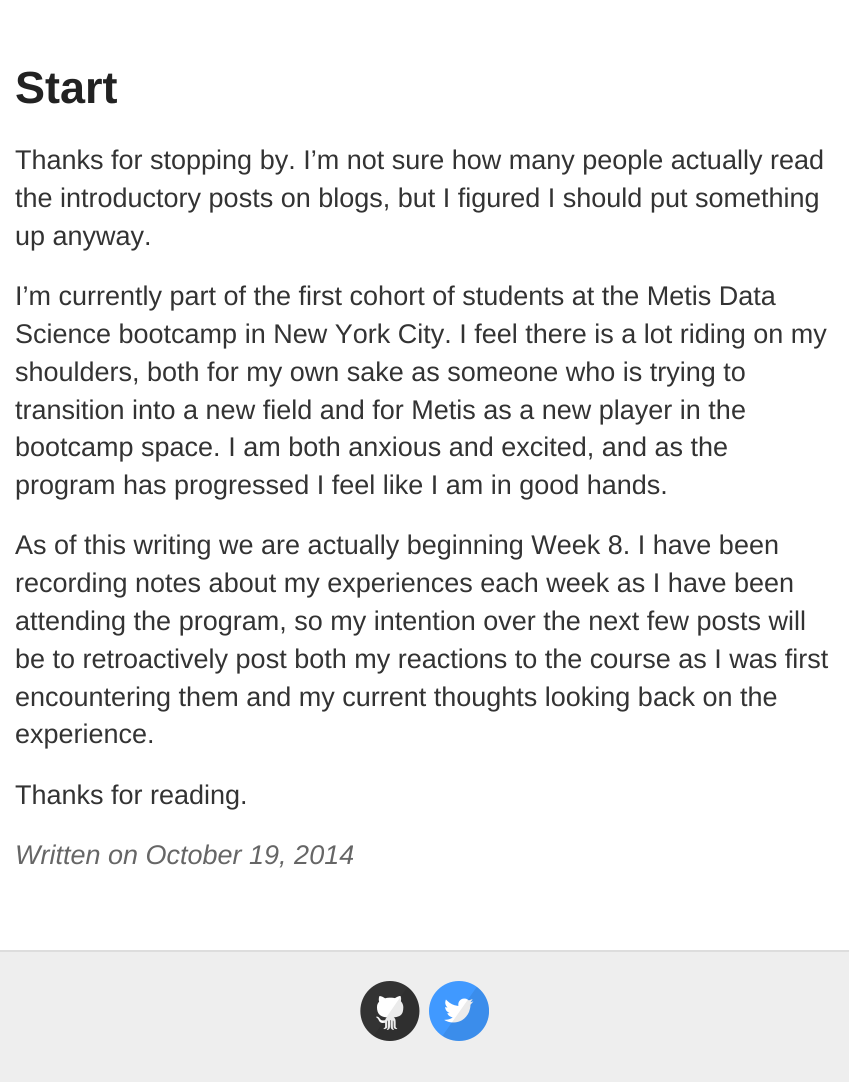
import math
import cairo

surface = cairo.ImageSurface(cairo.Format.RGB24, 849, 1082)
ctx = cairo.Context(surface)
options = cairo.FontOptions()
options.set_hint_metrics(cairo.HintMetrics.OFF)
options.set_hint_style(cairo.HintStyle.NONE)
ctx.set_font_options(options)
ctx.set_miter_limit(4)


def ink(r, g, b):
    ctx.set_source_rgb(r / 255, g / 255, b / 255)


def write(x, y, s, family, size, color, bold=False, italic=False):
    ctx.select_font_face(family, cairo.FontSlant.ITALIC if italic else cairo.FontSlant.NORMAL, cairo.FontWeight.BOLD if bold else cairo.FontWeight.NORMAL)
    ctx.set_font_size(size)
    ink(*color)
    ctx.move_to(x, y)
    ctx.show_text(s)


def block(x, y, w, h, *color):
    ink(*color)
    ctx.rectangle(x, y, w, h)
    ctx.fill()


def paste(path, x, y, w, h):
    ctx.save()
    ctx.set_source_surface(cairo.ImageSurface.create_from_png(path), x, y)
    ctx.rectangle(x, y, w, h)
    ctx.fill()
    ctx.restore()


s1 = dict(family="Liberation Sans", size=45, color=(34, 34, 34), bold=True)
s2 = dict(family="Liberation Sans", size=27, color=(51, 51, 51))
s3 = dict(family="Liberation Sans", size=27, color=(102, 102, 102), italic=True)

ink(255, 255, 255)
ctx.paint()
write(15, 103, "Start", **s1)
write(15, 169, "Thanks for stopping by. I’m not sure how many people actually read", **s2)
write(15, 207, "the introductory posts on blogs, but I figured I should put something", **s2)
write(15, 245, "up anyway.", **s2)
write(15, 305, "I’m currently part of the first cohort of students at the Metis Data", **s2)
write(15, 343, "Science bootcamp in New York City. I feel there is a lot riding on my", **s2)
write(15, 381, "shoulders, both for my own sake as someone who is trying to", **s2)
write(15, 419, "transition into a new field and for Metis as a new player in the", **s2)
write(15, 456, "bootcamp space. I am both anxious and excited, and as the", **s2)
write(15, 494, "program has progressed I feel like I am in good hands.", **s2)
write(15, 554, "As of this writing we are actually beginning Week 8. I have been", **s2)
write(15, 592, "recording notes about my experiences each week as I have been", **s2)
write(15, 630, "attending the program, so my intention over the next few posts will", **s2)
write(15, 668, "be to retroactively post both my reactions to the course as I was first", **s2)
write(15, 706, "encountering them and my current thoughts looking back on the", **s2)
write(15, 743, "experience.", **s2)
write(15, 804, "Thanks for reading.", **s2)
write(15, 864, "Written on October 19, 2014", **s3)
block(0, 952, 849, 130, 238, 238, 238)
block(0, 950, 849, 2, 221, 221, 221)
paste("pic1.png", 360, 981, 60, 60)
paste("pic2.png", 429, 981, 60, 60)
surface.write_to_png("screenshot.png")
